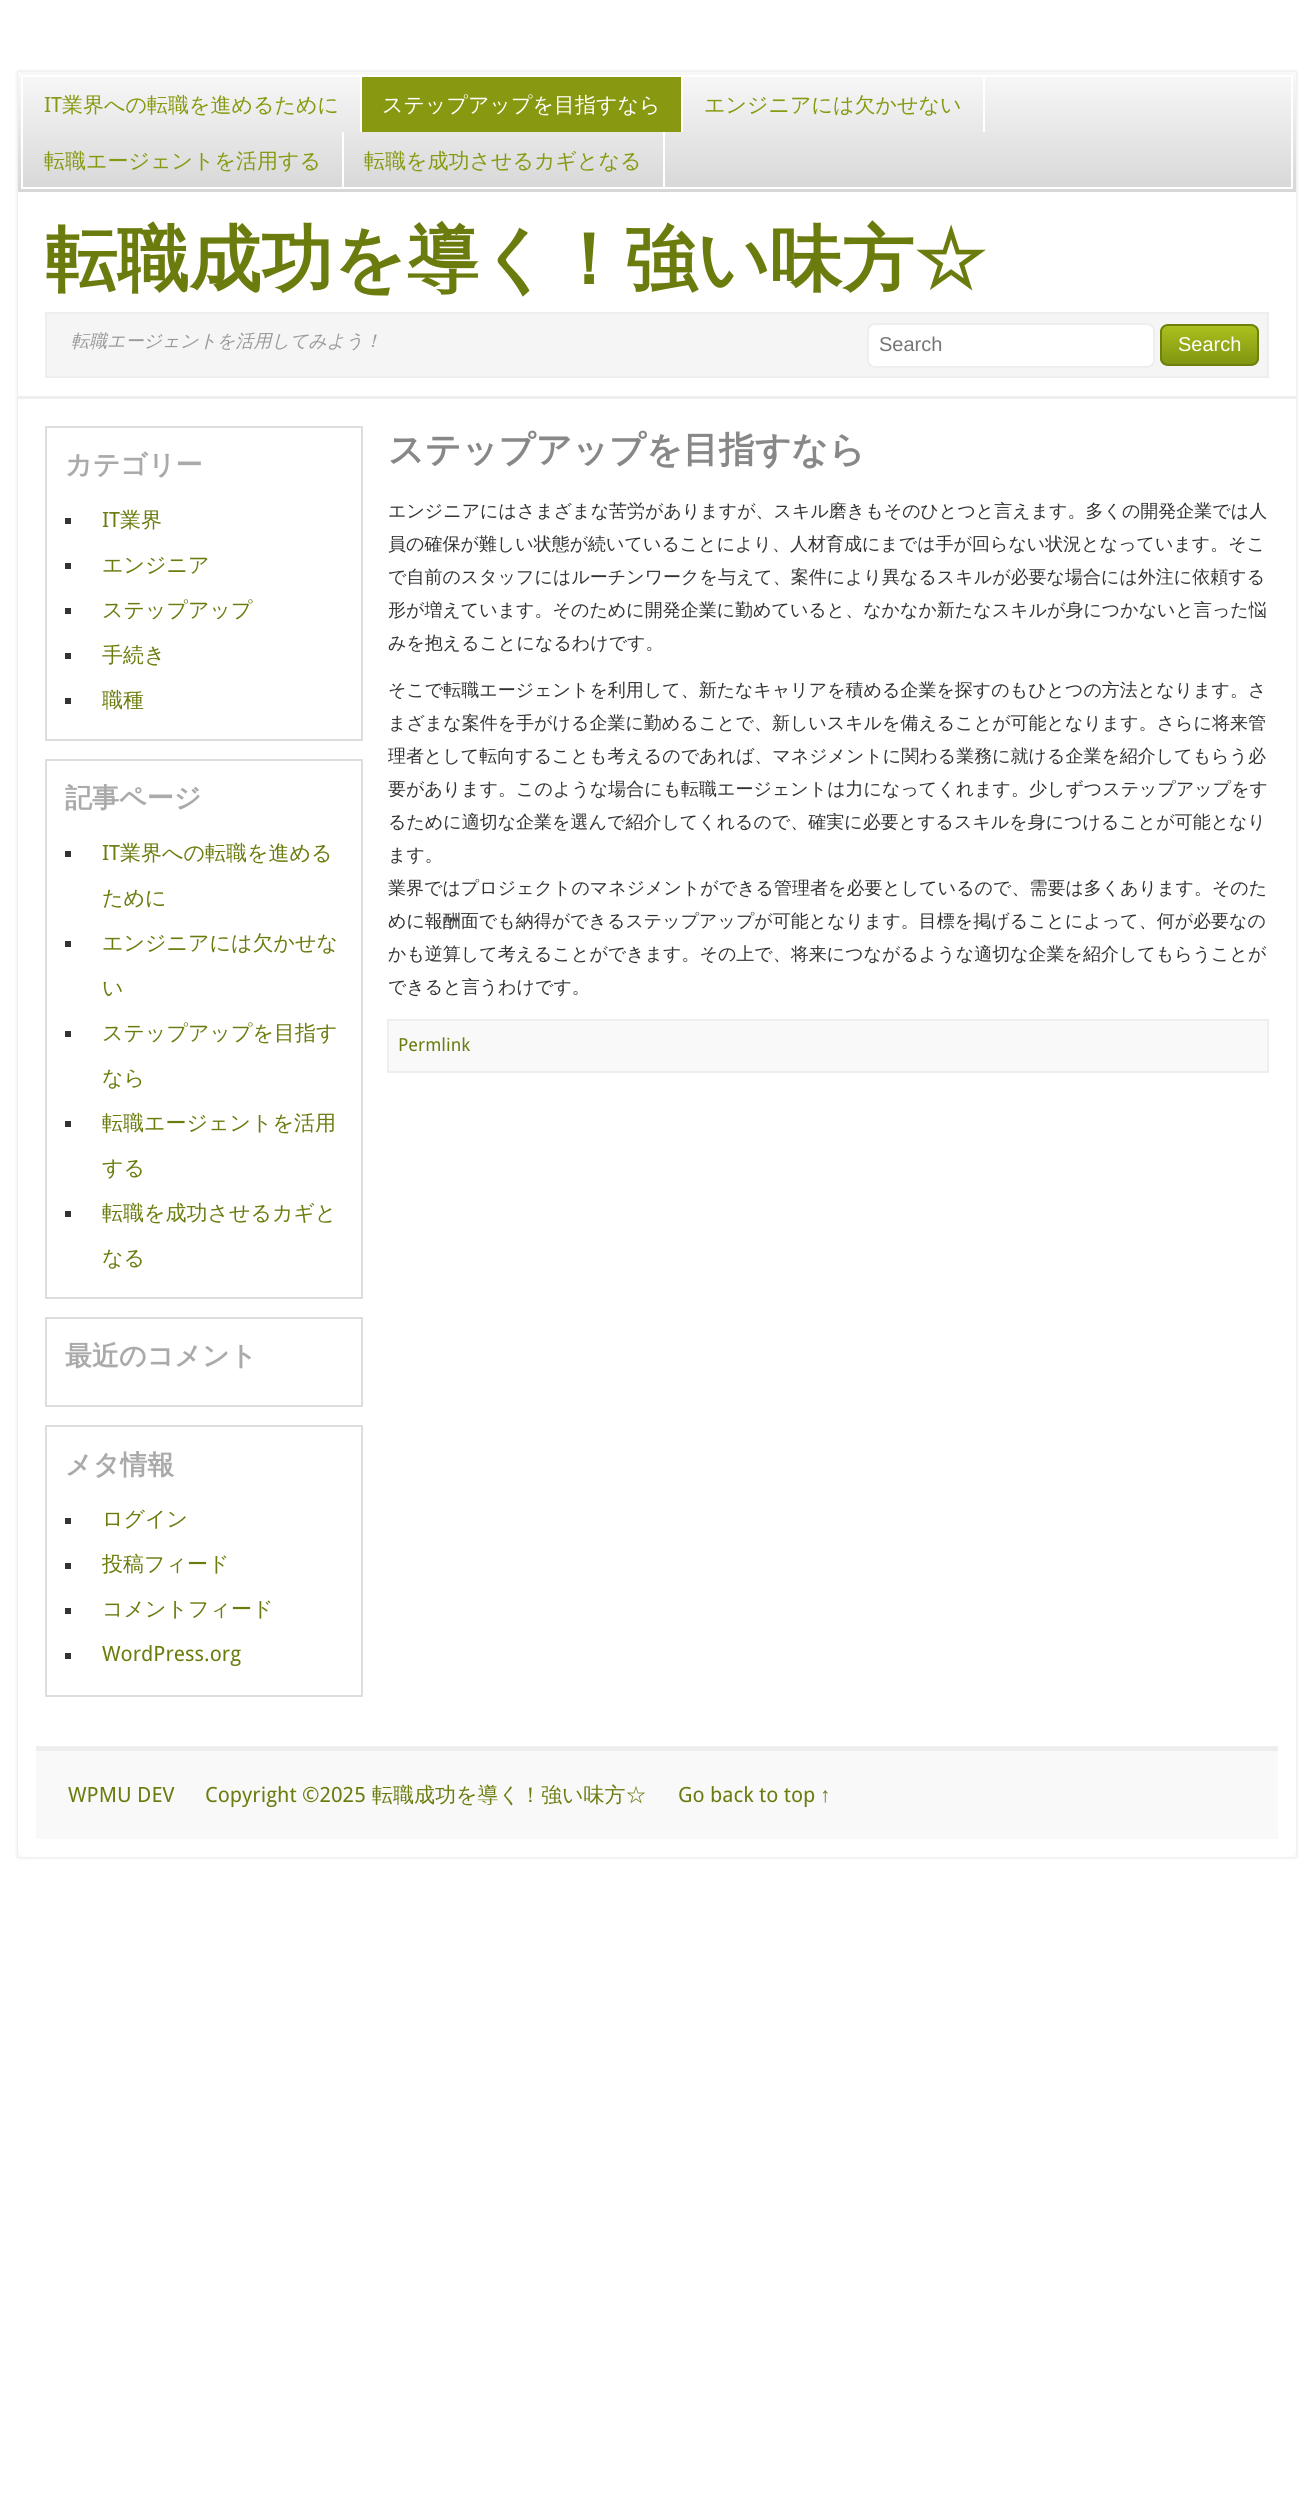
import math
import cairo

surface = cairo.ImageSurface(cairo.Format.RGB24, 1314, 2508)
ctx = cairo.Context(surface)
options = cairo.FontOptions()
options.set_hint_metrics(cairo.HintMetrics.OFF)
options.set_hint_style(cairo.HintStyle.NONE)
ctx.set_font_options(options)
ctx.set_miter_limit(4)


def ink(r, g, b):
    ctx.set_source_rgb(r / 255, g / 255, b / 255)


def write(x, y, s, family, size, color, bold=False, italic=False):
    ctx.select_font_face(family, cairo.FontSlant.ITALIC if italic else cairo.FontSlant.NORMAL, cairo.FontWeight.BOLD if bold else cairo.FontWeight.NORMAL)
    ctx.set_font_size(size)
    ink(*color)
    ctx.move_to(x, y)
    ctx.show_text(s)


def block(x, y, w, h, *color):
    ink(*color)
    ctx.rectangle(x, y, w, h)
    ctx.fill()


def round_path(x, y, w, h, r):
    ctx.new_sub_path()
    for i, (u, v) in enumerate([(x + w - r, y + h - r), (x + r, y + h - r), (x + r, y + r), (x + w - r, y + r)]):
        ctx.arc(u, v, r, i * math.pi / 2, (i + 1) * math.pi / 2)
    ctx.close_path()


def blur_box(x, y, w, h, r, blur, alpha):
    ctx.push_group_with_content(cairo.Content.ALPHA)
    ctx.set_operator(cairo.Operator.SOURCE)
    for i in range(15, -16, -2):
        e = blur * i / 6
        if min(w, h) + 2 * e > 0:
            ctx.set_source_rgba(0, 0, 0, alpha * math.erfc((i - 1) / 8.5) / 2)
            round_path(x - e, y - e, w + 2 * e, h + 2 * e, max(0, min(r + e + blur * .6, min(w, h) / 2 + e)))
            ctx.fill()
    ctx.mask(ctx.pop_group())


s1 = dict(family="Droid Sans", size=21, color=(136, 153, 17))
s2 = dict(family="WenQuanYi Zen Hei Medium", size=21, color=(136, 153, 17))
s3 = dict(family="WenQuanYi Zen Hei Medium", size=21, color=(255, 255, 255))
s4 = dict(family="WenQuanYi Zen Hei", size=72, color=(108, 123, 14), bold=True)
s5 = dict(family="WenQuanYi Zen Hei Medium", size=18, color=(153, 153, 153), italic=True)
s6 = dict(family="Liberation Sans", size=20, color=(117, 117, 117))
s7 = dict(family="Liberation Sans", size=20, color=(255, 255, 255))
s8 = dict(family="WenQuanYi Zen Hei", size=27, color=(170, 170, 170), bold=True)
s9 = dict(family="Droid Sans", size=21, color=(108, 123, 14))
s10 = dict(family="WenQuanYi Zen Hei Medium", size=21, color=(108, 123, 14))
s11 = dict(family="WenQuanYi Zen Hei", size=36, color=(136, 136, 136), bold=True)
s12 = dict(family="WenQuanYi Zen Hei Medium", size=18, color=(51, 51, 51))
s13 = dict(family="Droid Sans", size=18, color=(108, 123, 14))
s14 = dict(family="Liberation Sans", size=21, color=(108, 123, 14))

ink(255, 255, 255)
ctx.paint()
ink(0, 0, 0)
blur_box(18, 72, 1278, 1785, 0, 2, 0.15)
ctx.rectangle(22.5, 76.5, 1269, 1776)
ink(250, 250, 250)
ctx.set_line_width(9)
ctx.stroke()
gradient = cairo.LinearGradient(657, 72, 657, 192)
gradient.add_color_stop_rgba(0, 0.973, 0.973, 0.973, 1)
gradient.add_color_stop_rgba(1, 0.839, 0.843, 0.839, 1)
ctx.set_source(gradient)
ctx.new_path()
ctx.move_to(26, 72)
ctx.line_to(1288, 72)
ctx.curve_to(1292.5, 72, 1296, 75.5, 1296, 80)
ctx.line_to(1296, 192)
ctx.line_to(18, 192)
ctx.line_to(18, 80)
ctx.curve_to(18, 75.5, 21.5, 72, 26, 72)
ctx.close_path()
ctx.fill()
ctx.rectangle(22, 76, 1270, 112)
ink(255, 255, 255)
ctx.set_line_width(2)
ctx.stroke()
block(360, 77, 2, 55, 255, 255, 255)
write(44, 112, "IT", **s1)
write(62, 112, "業界への転職を進めるために", **s2)
block(681, 77, 2, 55, 255, 255, 255)
block(362, 77, 319, 55, 136, 153, 17)
write(382, 112, "ステップアップを目指すなら", **s3)
block(983, 77, 2, 55, 255, 255, 255)
write(704, 112, "エンジニアには欠かせない", **s2)
block(342, 132, 2, 56, 255, 255, 255)
write(44, 168, "転職エージェントを活用する", **s2)
block(663, 132, 2, 56, 255, 255, 255)
write(364, 168, "転職を成功させるカギとなる", **s2)
ink(255, 255, 255)
ctx.new_path()
ctx.move_to(18, 192)
ctx.line_to(1296, 192)
ctx.line_to(1296, 1849)
ctx.curve_to(1296, 1853.5, 1292.5, 1857, 1288, 1857)
ctx.line_to(26, 1857)
ctx.curve_to(21.5, 1857, 18, 1853.5, 18, 1849)
ctx.close_path()
ctx.fill()
block(18, 396, 1278, 3, 238, 238, 238)
write(45, 284, "転職成功を導く！強い味方☆", **s4)
ink(245, 245, 245)
ctx.rectangle(46, 313, 1222, 64)
ctx.fill_preserve()
ink(238, 238, 238)
ctx.stroke()
write(71, 347, "転職エージェントを活用してみよう！", **s5)
ink(255, 255, 255)
round_path(868, 324, 286, 43, 7)
ctx.fill_preserve()
ink(238, 238, 238)
ctx.stroke()
write(879, 351, "Search", **s6)
ctx.save()
round_path(1160, 324, 99, 42, 8)
ctx.clip()
gradient = cairo.LinearGradient(1209, 326, 1209, 365)
gradient.add_color_stop_rgba(0, 0.671, 0.753, 0.118, 1)
gradient.add_color_stop_rgba(1, 0.502, 0.58, 0.063, 1)
ctx.set_source(gradient)
ctx.rectangle(1160, 326, 99, 39)
ctx.fill()
ctx.restore()
round_path(1161, 325, 97, 40, 7)
ink(112, 128, 14)
ctx.stroke()
write(1178, 351, "Search", **s7)
ctx.rectangle(46, 427, 316, 313)
ink(221, 221, 221)
ctx.stroke()
write(65, 474, "カテゴリー", **s8)
block(65, 518, 6, 6, 51, 51, 51)
write(102, 527, "IT", **s9)
write(120, 527, "業界", **s10)
block(65, 563, 6, 6, 51, 51, 51)
write(102, 572, "エンジニア", **s10)
block(65, 608, 6, 6, 51, 51, 51)
write(102, 617, "ステップアップ", **s10)
block(65, 653, 6, 6, 51, 51, 51)
write(102, 662, "手続き", **s10)
block(65, 698, 6, 6, 51, 51, 51)
write(102, 707, "職種", **s10)
ctx.rectangle(46, 760, 316, 538)
ink(221, 221, 221)
ctx.stroke()
write(65, 807, "記事ページ", **s8)
block(65, 851, 6, 6, 51, 51, 51)
write(102, 860, "IT", **s9)
write(120, 860, "業界への転職を進める", **s10)
write(102, 905, "ために", **s10)
block(65, 941, 6, 6, 51, 51, 51)
write(102, 950, "エンジニアには欠かせな", **s10)
write(102, 995, "い", **s10)
block(65, 1031, 6, 6, 51, 51, 51)
write(102, 1040, "ステップアップを目指す", **s10)
write(102, 1085, "なら", **s10)
block(65, 1121, 6, 6, 51, 51, 51)
write(102, 1130, "転職エージェントを活用", **s10)
write(102, 1175, "する", **s10)
block(65, 1211, 6, 6, 51, 51, 51)
write(102, 1220, "転職を成功させるカギと", **s10)
write(102, 1265, "なる", **s10)
ctx.rectangle(46, 1318, 316, 88)
ink(221, 221, 221)
ctx.stroke()
write(65, 1365, "最近のコメント", **s8)
ctx.rectangle(46, 1426, 316, 270)
ink(221, 221, 221)
ctx.stroke()
write(65, 1474, "メタ情報", **s8)
block(65, 1518, 6, 6, 51, 51, 51)
write(102, 1526, "ログイン", **s10)
block(65, 1563, 6, 6, 51, 51, 51)
write(102, 1571, "投稿フィード", **s10)
block(65, 1608, 6, 6, 51, 51, 51)
write(102, 1616, "コメントフィード", **s10)
block(65, 1653, 6, 6, 51, 51, 51)
write(102, 1661, "WordPress.org", **s9)
write(388, 462, "ステップアップを目指すなら", **s11)
write(388, 517, "エンジニアにはさまざまな苦労がありますが、スキル磨きもそのひとつと言えます。多くの開発企業では人", **s12)
write(388, 550, "員の確保が難しい状態が続いていることにより、人材育成にまでは手が回らない状況となっています。そこ", **s12)
write(388, 583, "で自前のスタッフにはルーチンワークを与えて、案件により異なるスキルが必要な場合には外注に依頼する", **s12)
write(388, 616, "形が増えています。そのために開発企業に勤めていると、なかなか新たなスキルが身につかないと言った悩", **s12)
write(388, 649, "みを抱えることになるわけです。", **s12)
write(388, 696, "そこで転職エージェントを利用して、新たなキャリアを積める企業を探すのもひとつの方法となります。さ", **s12)
write(388, 729, "まざまな案件を手がける企業に勤めることで、新しいスキルを備えることが可能となります。さらに将来管", **s12)
write(388, 762, "理者として転向することも考えるのであれば、マネジメントに関わる業務に就ける企業を紹介してもらう必", **s12)
write(388, 795, "要があります。このような場合にも転職エージェントは力になってくれます。少しずつステップアップをす", **s12)
write(388, 828, "るために適切な企業を選んで紹介してくれるので、確実に必要とするスキルを身につけることが可能となり", **s12)
write(388, 861, "ます。", **s12)
write(388, 894, "業界ではプロジェクトのマネジメントができる管理者を必要としているので、需要は多くあります。そのた", **s12)
write(388, 927, "めに報酬面でも納得ができるステップアップが可能となります。目標を掲げることによって、何が必要なの", **s12)
write(388, 960, "かも逆算して考えることができます。その上で、将来につながるような適切な企業を紹介してもらうことが", **s12)
write(388, 993, "できると言うわけです。", **s12)
ink(249, 249, 249)
ctx.rectangle(388, 1020, 880, 52)
ctx.fill_preserve()
ink(238, 238, 238)
ctx.stroke()
write(398, 1051, "Permlink", **s13)
block(36, 1751, 1242, 88, 249, 249, 249)
block(36, 1746, 1242, 5, 238, 238, 238)
write(68, 1802, "WPMU DEV", **s9)
write(205, 1802, "Copyright ©2025", **s9)
write(372, 1802, "転職成功を導く！強い味方☆", **s10)
write(678, 1802, "Go back to top", **s9)
write(820, 1802, "↑", **s14)
surface.write_to_png("screenshot.png")
